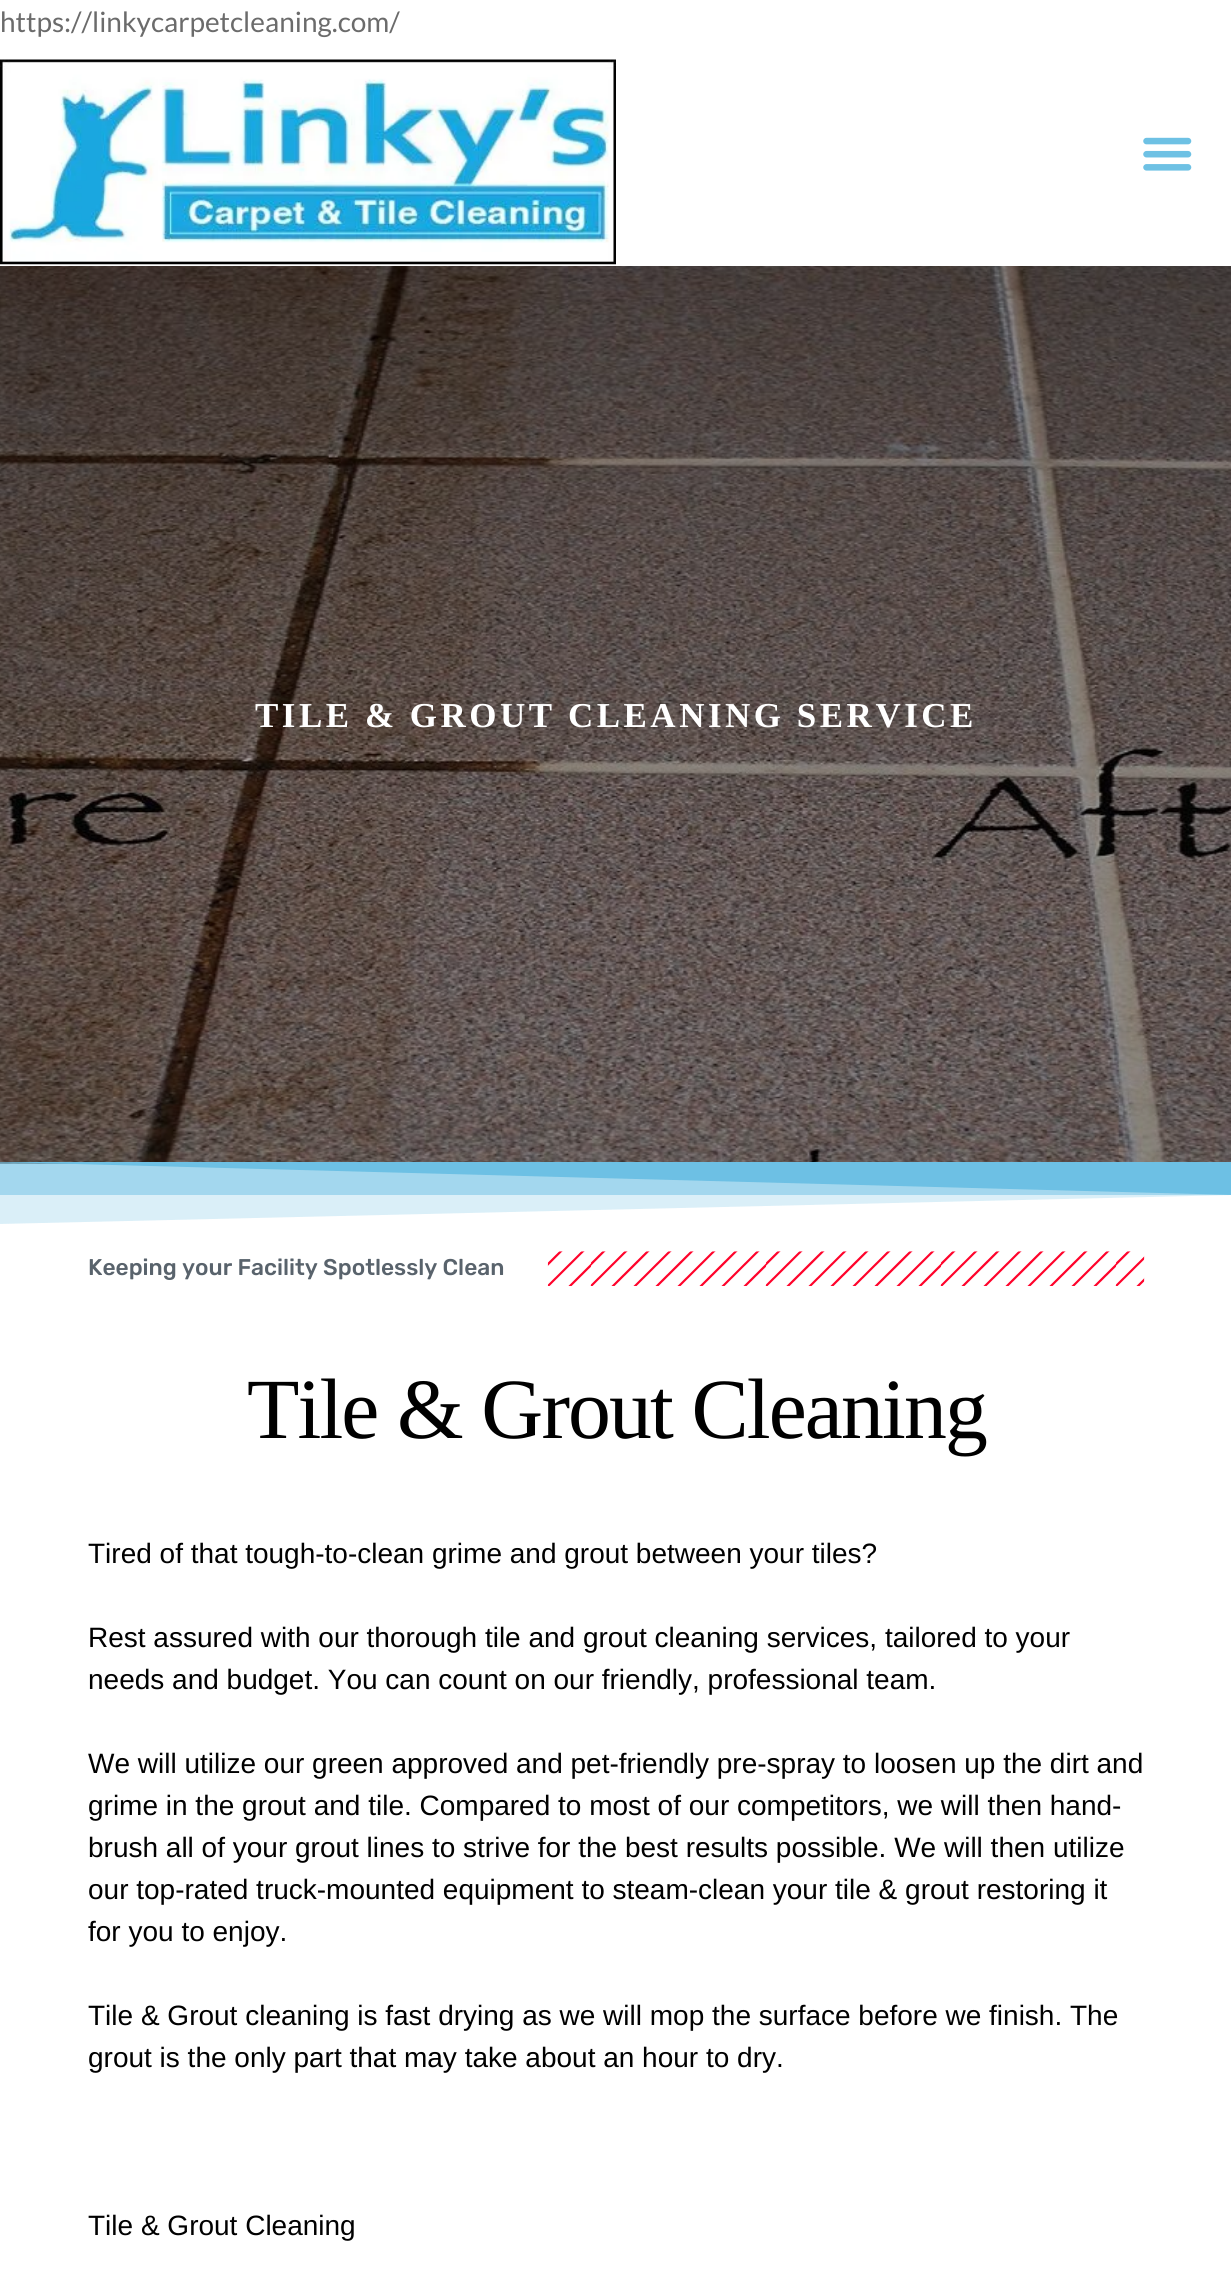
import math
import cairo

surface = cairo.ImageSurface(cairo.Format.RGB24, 1231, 2293)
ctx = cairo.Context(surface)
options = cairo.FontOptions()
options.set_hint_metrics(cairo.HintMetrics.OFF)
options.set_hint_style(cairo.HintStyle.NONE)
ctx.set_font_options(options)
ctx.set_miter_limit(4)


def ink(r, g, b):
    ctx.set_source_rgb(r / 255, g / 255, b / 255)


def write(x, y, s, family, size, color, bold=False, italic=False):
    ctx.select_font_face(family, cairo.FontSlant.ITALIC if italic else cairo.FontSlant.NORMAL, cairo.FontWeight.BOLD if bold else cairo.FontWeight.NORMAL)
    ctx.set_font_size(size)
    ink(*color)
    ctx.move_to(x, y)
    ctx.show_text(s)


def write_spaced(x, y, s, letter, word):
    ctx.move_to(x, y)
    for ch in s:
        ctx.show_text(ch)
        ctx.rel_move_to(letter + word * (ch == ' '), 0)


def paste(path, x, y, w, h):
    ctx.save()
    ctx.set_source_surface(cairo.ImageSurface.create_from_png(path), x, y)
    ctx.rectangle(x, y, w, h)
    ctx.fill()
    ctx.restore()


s1 = dict(family="Lato", size=28, color=(107, 107, 107))
s2 = dict(family="Rubik Medium", size=22.75, color=(89, 99, 108))
s3 = dict(family="Liberation Sans", size=28, color=(0, 0, 0))

ink(255, 255, 255)
ctx.paint()
write(0, 32, "https://linkycarpetcleaning.com/", **s1)
paste("pic1.png", 0, 59, 616, 206)
paste("pic2.png", 1143, 137, 49, 34)
paste("pic3.png", 0, 266, 1231, 898)
ctx.select_font_face("Liberation Serif", cairo.FontSlant.NORMAL, cairo.FontWeight.BOLD)
ctx.set_font_size(35)
ink(255, 255, 255)
write_spaced(255, 727, "TILE & GROUT CLEANING SERVICE", 3.5, 0)
ink(110, 193, 228)
ctx.new_path()
ctx.move_to(-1, 1162)
ctx.line_to(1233, 1162)
ctx.line_to(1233, 1195)
ctx.close_path()
ctx.fill()
ctx.set_source_rgba(0.431, 0.757, 0.894, 0.5)
ctx.rectangle(0, 1162, 1231, 33)
ctx.fill()
ctx.set_source_rgba(0.431, 0.757, 0.894, 0.25)
ctx.new_path()
ctx.move_to(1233, 1162)
ctx.line_to(-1, 1162)
ctx.line_to(-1, 1224)
ctx.line_to(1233, 1195)
ctx.close_path()
ctx.fill()
write(88, 1275, "Keeping your Facility Spotlessly Clean", **s2)
paste("pic4.png", 547, 1251, 598, 35)
ctx.select_font_face("Liberation Serif")
ctx.set_font_size(85.75)
ink(0, 0, 0)
write_spaced(247, 1438, "Tile & Grout Cleaning", -1.9, 0)
write(88, 1563, "Tired of that tough-to-clean grime and grout between your tiles?", **s3)
write(88, 1647, "Rest assured with our thorough tile and grout cleaning services, tailored to your", **s3)
write(88, 1689, "needs and budget. You can count on our friendly, professional team.", **s3)
write(88, 1773, "We will utilize our green approved and pet-friendly pre-spray to loosen up the dirt and", **s3)
write(88, 1815, "grime in the grout and tile. Compared to most of our competitors, we will then hand-", **s3)
write(88, 1857, "brush all of your grout lines to strive for the best results possible. We will then utilize", **s3)
write(88, 1899, "our top-rated truck-mounted equipment to steam-clean your tile & grout restoring it", **s3)
write(88, 1941, "for you to enjoy.", **s3)
write(88, 2025, "Tile & Grout cleaning is fast drying as we will mop the surface before we finish. The", **s3)
write(88, 2067, "grout is the only part that may take about an hour to dry.", **s3)
write(88, 2235, "Tile & Grout Cleaning", **s3)
surface.write_to_png("screenshot.png")
